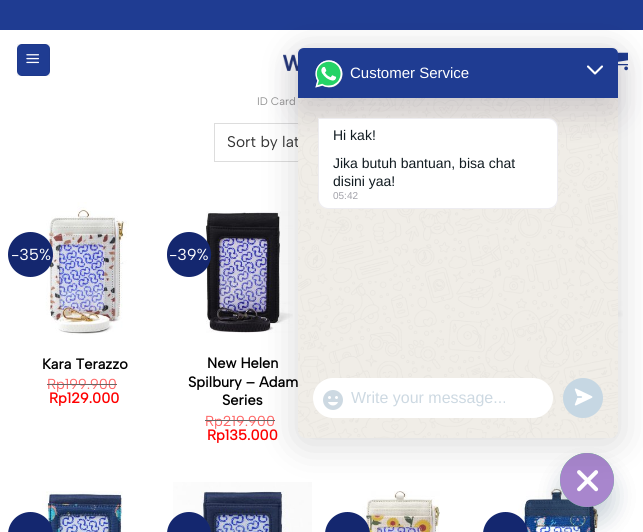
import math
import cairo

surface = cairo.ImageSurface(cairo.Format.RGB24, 643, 532)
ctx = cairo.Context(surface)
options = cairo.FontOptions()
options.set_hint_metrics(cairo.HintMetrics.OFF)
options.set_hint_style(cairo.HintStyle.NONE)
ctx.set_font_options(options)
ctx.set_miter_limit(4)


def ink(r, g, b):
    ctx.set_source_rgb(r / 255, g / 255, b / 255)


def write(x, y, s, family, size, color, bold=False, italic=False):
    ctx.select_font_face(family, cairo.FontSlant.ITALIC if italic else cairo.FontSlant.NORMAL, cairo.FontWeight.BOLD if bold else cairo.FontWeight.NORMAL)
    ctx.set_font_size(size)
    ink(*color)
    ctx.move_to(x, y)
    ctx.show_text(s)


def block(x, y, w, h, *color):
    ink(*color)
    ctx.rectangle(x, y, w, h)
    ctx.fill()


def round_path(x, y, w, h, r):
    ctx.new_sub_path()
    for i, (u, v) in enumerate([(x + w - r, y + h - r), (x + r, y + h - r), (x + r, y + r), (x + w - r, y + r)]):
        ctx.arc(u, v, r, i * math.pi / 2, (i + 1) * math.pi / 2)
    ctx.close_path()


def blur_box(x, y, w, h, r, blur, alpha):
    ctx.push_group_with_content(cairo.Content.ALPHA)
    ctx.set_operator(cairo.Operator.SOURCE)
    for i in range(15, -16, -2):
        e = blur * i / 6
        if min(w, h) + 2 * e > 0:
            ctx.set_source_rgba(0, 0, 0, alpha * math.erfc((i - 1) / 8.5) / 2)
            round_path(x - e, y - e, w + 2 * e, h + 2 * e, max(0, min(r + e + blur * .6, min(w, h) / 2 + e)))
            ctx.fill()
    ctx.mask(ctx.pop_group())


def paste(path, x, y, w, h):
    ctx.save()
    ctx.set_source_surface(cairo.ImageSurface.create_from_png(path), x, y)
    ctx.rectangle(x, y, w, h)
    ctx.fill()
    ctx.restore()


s1 = dict(family="Albert Sans", size=11, color=(148, 148, 148))
s2 = dict(family="Albert Sans", size=15.5, color=(51, 51, 51))
s3 = dict(family="Albert Sans", size=16, color=(255, 255, 255))
s4 = dict(family="Albert Sans", size=14.5, color=(0, 0, 0), bold=True)
s5 = dict(family="Albert Sans", size=14.5, color=(255, 102, 102))
s6 = dict(family="Albert Sans", size=14.5, color=(255, 0, 0), bold=True)
s7 = dict(family="Liberation Sans", size=15, color=(255, 255, 255))
s8 = dict(family="Liberation Sans", size=14, color=(17, 27, 33))
s9 = dict(family="Liberation Sans", size=10, color=(161, 161, 169))
s10 = dict(family="Liberation Sans", size=16, color=(205, 217, 226))

ink(255, 255, 255)
ctx.paint()
block(0, 0, 643, 30, 31, 60, 146)
round_path(17, 44, 33, 32, 5)
ctx.fill()
ctx.rectangle(17.5, 44.5, 32, 31)
ctx.set_source_rgba(0, 0, 0, 0.05)
ctx.set_line_width(1)
ctx.stroke()
paste("pic1.png", 26, 54, 13, 10)
paste("pic2.png", 283, 54, 15, 17)
paste("pic3.png", 617, 52, 11, 19)
write(257, 105, "ID Card", **s1)
ctx.rectangle(214.5, 123.5, 214, 38)
ink(221, 221, 221)
ctx.stroke()
write(227, 147, "Sort by lat", **s2)
paste("pic4.png", 43, 202, 86, 133)
ink(20, 39, 111)
ctx.arc(30.5, 254.5, 22.5, 0, 2 * math.pi)
ctx.fill()
write(11, 260, "-35%", **s3)
write(42, 369, "Kara Terazzo", **s4)
write(47, 389, "Rp199.900", **s5)
block(47, 384, 70, 1, 102, 102, 102)
write(49, 403, "Rp129.000", **s6)
paste("pic5.png", 206, 211, 87, 122)
ink(20, 39, 111)
round_path(167, 232, 44, 45, 22)
ctx.fill()
write(169, 260, "-39%", **s3)
write(207, 368, "New Helen", **s4)
write(188, 387, "Spilbury – Adam", **s4)
write(222, 405, "Series", **s4)
write(205, 426, "Rp219.900", **s5)
block(205, 420, 70, 1, 102, 102, 102)
write(207, 440, "Rp135.000", **s6)
paste("pic6.png", 618, 211, 5, 124)
paste("pic7.png", 42, 491, 81, 41)
ink(20, 39, 111)
round_path(8, 512, 45, 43, 22.5)
ctx.fill()
paste("pic8.png", 173, 482, 139, 50)
round_path(167, 512, 44, 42, 22)
ctx.fill()
paste("pic9.png", 358, 491, 82, 41)
round_path(325, 512, 45, 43, 22.5)
ctx.fill()
paste("pic10.png", 518, 487, 81, 45)
round_path(483, 512, 45, 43, 22.5)
ctx.fill()
ink(73, 104, 126)
blur_box(560, 469, 54, 54, 27, 12, 0.16)
paste("pic15.png", 560, 453, 54, 54)
blur_box(560, 469, 54, 54, 27, 12, 0.16)
paste("pic16.png", 560, 453, 54, 54)
ink(0, 0, 0)
blur_box(298, 53, 320, 390, 6, 20, 0.16)
ink(240, 237, 231)
round_path(298, 48, 320, 390, 8)
ctx.fill()
paste("pic11.png", 298, 49, 320, 389)
ink(26, 14, 53)
blur_box(298, 64, 320, 50, 6, 16, 0.16)
ink(31, 60, 146)
ctx.new_path()
ctx.move_to(304, 48)
ctx.line_to(612, 48)
ctx.curve_to(615.5, 48, 618, 50.5, 618, 54)
ctx.line_to(618, 98)
ctx.line_to(298, 98)
ctx.line_to(298, 54)
ctx.curve_to(298, 50.5, 300.5, 48, 304, 48)
ctx.close_path()
ctx.fill()
paste("pic12.png", 315, 60, 28, 28)
write(350, 78, "Customer Service", **s7)
ctx.new_path()
ctx.move_to(588, 66.5)
ctx.line_to(595, 73.5)
ctx.line_to(602, 66.5)
ctx.set_line_width(2.1)
ctx.set_line_cap(cairo.LineCap.ROUND)
ctx.set_line_join(cairo.LineJoin.ROUND)
ctx.stroke()
ctx.new_path()
ctx.move_to(318, 118)
ctx.line_to(548, 118)
ctx.curve_to(553.5, 118, 558, 122.5, 558, 128)
ctx.line_to(558, 199)
ctx.curve_to(558, 204.5, 553.5, 209, 548, 209)
ctx.line_to(328, 209)
ctx.curve_to(322.5, 209, 318, 204.5, 318, 199)
ctx.close_path()
ctx.fill()
ctx.new_path()
ctx.move_to(318.5, 118.5)
ctx.line_to(548, 118.5)
ctx.curve_to(553, 118.5, 557.5, 123, 557.5, 128)
ctx.line_to(557.5, 199)
ctx.curve_to(557.5, 204, 553, 208.5, 548, 208.5)
ctx.line_to(328, 208.5)
ctx.curve_to(323, 208.5, 318.5, 204, 318.5, 199)
ctx.close_path()
ctx.set_source_rgba(0.133, 0.067, 0.278, 0.08)
ctx.set_line_width(1)
ctx.set_line_cap(cairo.LineCap.BUTT)
ctx.set_line_join(cairo.LineJoin.MITER)
ctx.stroke()
write(333, 140, "Hi kak!", **s8)
write(333, 168, "Jika butuh bantuan, bisa chat", **s8)
write(333, 186, "disini yaa!", **s8)
write(333, 199, "05:42", **s9)
ink(255, 255, 255)
round_path(313, 378, 240, 40, 20)
ctx.fill()
paste("pic13.png", 323, 390, 20, 20)
write(351, 403, "Write your message...", **s10)
ink(198, 215, 227)
ctx.new_path()
ctx.arc(583, 398, 20, 0, 2 * math.pi)
ctx.fill()
paste("pic14.png", 574, 388, 19, 18)
surface.write_to_png("screenshot.png")
